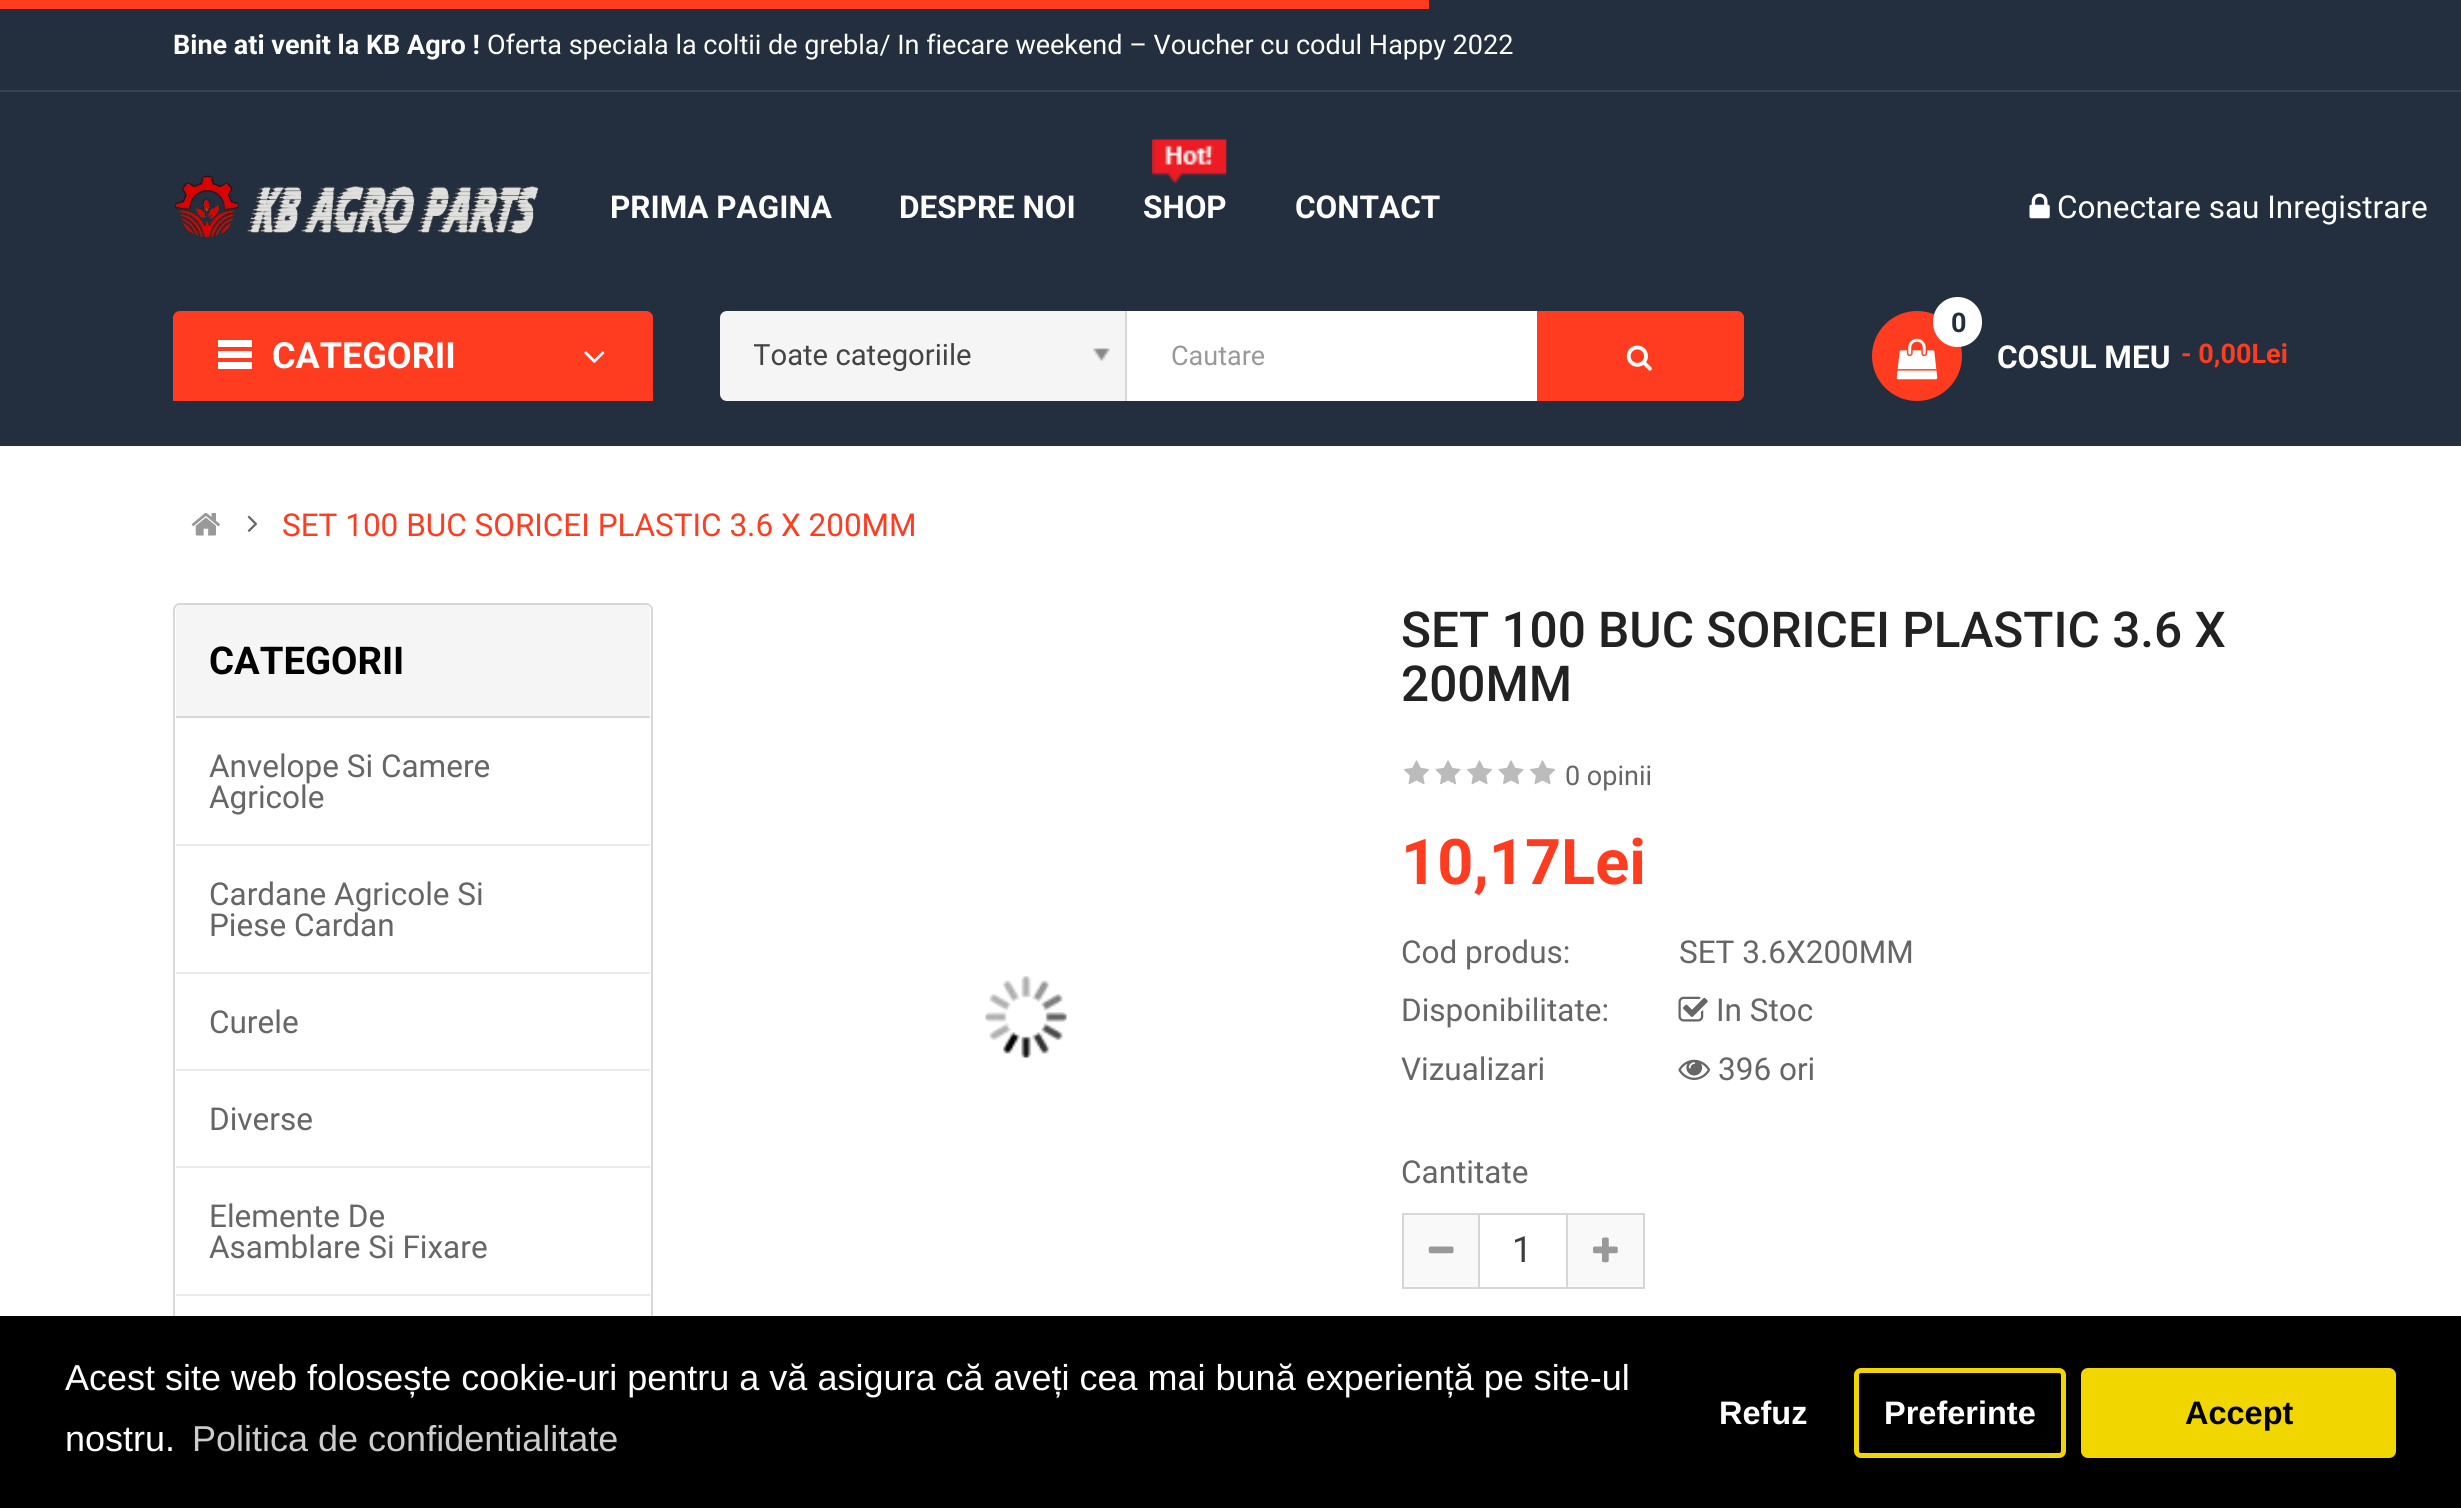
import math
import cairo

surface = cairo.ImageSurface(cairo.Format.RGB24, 2461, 1508)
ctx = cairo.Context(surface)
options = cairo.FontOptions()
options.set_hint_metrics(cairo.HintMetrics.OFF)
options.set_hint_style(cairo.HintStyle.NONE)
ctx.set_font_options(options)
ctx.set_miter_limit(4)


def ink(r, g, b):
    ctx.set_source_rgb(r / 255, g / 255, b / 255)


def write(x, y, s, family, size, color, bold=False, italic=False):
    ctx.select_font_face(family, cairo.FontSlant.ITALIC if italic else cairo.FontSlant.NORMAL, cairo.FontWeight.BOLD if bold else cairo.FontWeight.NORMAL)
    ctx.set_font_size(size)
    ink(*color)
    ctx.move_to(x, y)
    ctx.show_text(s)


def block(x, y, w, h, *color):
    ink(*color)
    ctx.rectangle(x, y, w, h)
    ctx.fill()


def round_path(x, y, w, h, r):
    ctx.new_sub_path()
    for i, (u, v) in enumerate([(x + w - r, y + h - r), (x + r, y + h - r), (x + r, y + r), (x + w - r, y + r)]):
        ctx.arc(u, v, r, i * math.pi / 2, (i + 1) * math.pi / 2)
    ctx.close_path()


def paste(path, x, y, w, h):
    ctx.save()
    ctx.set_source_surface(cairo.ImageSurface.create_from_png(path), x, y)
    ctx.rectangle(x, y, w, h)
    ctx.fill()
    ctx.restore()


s1 = dict(family="Roboto", size=27, color=(255, 255, 255), bold=True)
s2 = dict(family="Roboto", size=27, color=(255, 255, 255))
s3 = dict(family="Roboto", size=31.5, color=(255, 255, 255), bold=True)
s4 = dict(family="Roboto", size=31.5, color=(255, 255, 255))
s5 = dict(family="Roboto", size=36, color=(255, 255, 255), bold=True)
s6 = dict(family="Roboto", size=29.25, color=(68, 68, 68))
s7 = dict(family="Roboto", size=27, color=(153, 153, 153))
s8 = dict(family="Roboto", size=27, color=(35, 47, 62), bold=True)
s9 = dict(family="Roboto", size=27, color=(255, 60, 32), bold=True)
s10 = dict(family="Roboto", size=31.5, color=(255, 60, 32))
s11 = dict(family="Roboto", size=38.25, color=(0, 0, 0), bold=True)
s12 = dict(family="Roboto", size=31.5, color=(102, 102, 102))
s13 = dict(family="Roboto Medium", size=49.5, color=(34, 34, 34))
s14 = dict(family="Roboto", size=27, color=(102, 102, 102))
s15 = dict(family="Roboto", size=63, color=(255, 60, 32), bold=True)
s16 = dict(family="Roboto", size=36, color=(61, 61, 61))
s17 = dict(family="Liberation Sans", size=36, color=(255, 255, 255))
s18 = dict(family="Liberation Sans", size=36, color=(204, 204, 204))
s19 = dict(family="Liberation Sans", size=32.5, color=(255, 255, 255), bold=True)
s20 = dict(family="Liberation Sans", size=32.5, color=(0, 0, 0), bold=True)

ink(255, 255, 255)
ctx.paint()
block(0, 0, 2461, 446, 35, 47, 62)
block(0, 0, 1429, 9, 255, 60, 32)
block(0, 90, 2461, 2, 57, 68, 81)
write(173, 54, "Bine ati venit la KB Agro !", **s1)
write(487, 54, "Oferta speciala la coltii de grebla/ In fiecare weekend – Voucher cu codul Happy 2022", **s2)
paste("pic1.png", 175, 175, 364, 63)
write(610, 218, "PRIMA PAGINA", **s3)
write(899, 218, "DESPRE NOI", **s3)
paste("pic2.png", 1152, 139, 75, 46)
write(1143, 218, "SHOP", **s3)
write(1295, 218, "CONTACT", **s3)
paste("pic3.png", 2029, 193, 21, 26)
write(2057, 218, "Conectare sau Inregistrare", **s4)
ink(255, 60, 32)
ctx.new_path()
ctx.move_to(180, 311)
ctx.line_to(646, 311)
ctx.curve_to(650, 311, 653, 314, 653, 318)
ctx.line_to(653, 401)
ctx.line_to(173, 401)
ctx.line_to(173, 318)
ctx.curve_to(173, 314, 176, 311, 180, 311)
ctx.close_path()
ctx.fill()
block(218, 340, 34, 7, 255, 255, 255)
block(218, 351, 34, 7, 255, 255, 255)
block(218, 362, 34, 7, 255, 255, 255)
write(272, 368, "CATEGORII", **s5)
paste("pic4.png", 584, 351, 21, 12)
ink(245, 245, 245)
ctx.new_path()
ctx.move_to(727, 311)
ctx.line_to(1127, 311)
ctx.line_to(1127, 401)
ctx.line_to(727, 401)
ctx.curve_to(723, 401, 720, 398, 720, 394)
ctx.line_to(720, 318)
ctx.curve_to(720, 314, 723, 311, 727, 311)
ctx.close_path()
ctx.fill()
block(1125, 311, 2, 90, 215, 215, 215)
ctx.save()
ctx.rectangle(754, 311, 313, 90)
ctx.clip()
write(753, 365, "Toate categoriile", **s6)
ctx.restore()
paste("pic5.png", 1093, 348, 17, 14)
ink(255, 255, 255)
ctx.new_path()
ctx.move_to(1127, 311)
ctx.line_to(1735, 311)
ctx.curve_to(1740, 311, 1744, 315, 1744, 320)
ctx.line_to(1744, 392)
ctx.curve_to(1744, 397, 1740, 401, 1735, 401)
ctx.line_to(1127, 401)
ctx.close_path()
ctx.fill()
write(1171, 365, "Cautare", **s7)
ink(255, 60, 32)
ctx.new_path()
ctx.move_to(1537, 311)
ctx.line_to(1737, 311)
ctx.curve_to(1741, 311, 1744, 314, 1744, 318)
ctx.line_to(1744, 394)
ctx.curve_to(1744, 398, 1741, 401, 1737, 401)
ctx.line_to(1537, 401)
ctx.close_path()
ctx.fill()
paste("pic6.png", 1626, 345, 26, 26)
ctx.arc(1917, 356, 45, 0, 2 * math.pi)
ctx.fill()
paste("pic7.png", 1896, 338, 42, 42)
ink(255, 255, 255)
round_path(1933, 297, 49, 50, 24.5)
ctx.fill()
write(1951, 332, "0", **s8)
write(2181, 363, "- 0,00Lei", **s9)
write(1997, 368, "COSUL MEU", **s3)
paste("pic8.png", 191, 513, 29, 23)
paste("pic9.png", 247, 515, 11, 17)
write(282, 536, "SET 100 BUC SORICEI PLASTIC 3.6 X 200MM", **s10)
round_path(174, 604, 478, 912, 6)
ink(215, 215, 215)
ctx.stroke()
ink(245, 245, 245)
ctx.new_path()
ctx.move_to(181, 605)
ctx.line_to(645, 605)
ctx.curve_to(648, 605, 650, 607, 650, 610)
ctx.line_to(650, 718)
ctx.line_to(176, 718)
ctx.line_to(176, 610)
ctx.curve_to(176, 607, 178, 605, 181, 605)
ctx.close_path()
ctx.fill()
block(176, 716, 474, 2, 215, 215, 215)
write(209, 674, "CATEGORII", **s11)
block(176, 844, 474, 2, 234, 234, 234)
write(209, 777, "Anvelope Si Camere", **s12)
write(209, 808, "Agricole", **s12)
block(176, 972, 474, 2, 234, 234, 234)
write(209, 905, "Cardane Agricole Si", **s12)
write(209, 936, "Piese Cardan", **s12)
block(176, 1069, 474, 2, 234, 234, 234)
write(209, 1033, "Curele", **s12)
block(176, 1166, 474, 2, 234, 234, 234)
write(209, 1130, "Diverse", **s12)
block(176, 1294, 474, 2, 234, 234, 234)
write(209, 1227, "Elemente De", **s12)
write(209, 1258, "Asamblare Si Fixare", **s12)
paste("pic10.png", 985, 976, 82, 82)
write(1401, 647, "SET 100 BUC SORICEI PLASTIC 3.6 X", **s13)
write(1401, 701, "200MM", **s13)
paste("pic11.png", 1404, 760, 25, 25)
paste("pic12.png", 1435, 760, 26, 25)
paste("pic11.png", 1467, 760, 25, 25)
paste("pic12.png", 1498, 760, 26, 25)
paste("pic11.png", 1530, 760, 25, 25)
write(1565, 785, "0 opinii", **s14)
write(1401, 884, "10,17Lei", **s15)
write(1401, 963, "Cod produs:", **s12)
write(1679, 963, "SET 3.6X200MM", **s12)
write(1401, 1021, "Disponibilitate:", **s12)
paste("pic13.png", 1678, 996, 30, 26)
write(1716, 1021, "In Stoc", **s12)
write(1401, 1080, "Vizualizari", **s12)
paste("pic14.png", 1678, 1059, 32, 21)
write(1718, 1080, "396 ori", **s12)
write(1401, 1183, "Cantitate", **s12)
ctx.rectangle(1403, 1214, 241, 74)
ink(214, 214, 214)
ctx.stroke()
block(1404, 1215, 74, 72, 249, 249, 249)
paste("pic15.png", 1428, 1246, 26, 8)
block(1566, 1215, 2, 72, 214, 214, 214)
block(1478, 1215, 2, 72, 214, 214, 214)
write(1512, 1262, "1", **s16)
block(1568, 1215, 75, 72, 249, 249, 249)
paste("pic16.png", 1593, 1237, 25, 26)
block(0, 1316, 2461, 192, 0, 0, 0)
write(65, 1390, "Acest site web folosește cookie-uri pentru a vă asigura că aveți cea mai bună experiență pe site-ul", **s17)
write(65, 1451, "nostru.", **s17)
write(192, 1451, "Politica de confidentialitate", **s18)
write(1719, 1424, "Refuz", **s19)
round_path(1856.5, 1370.5, 207, 85, 4.5)
ink(241, 214, 0)
ctx.set_line_width(5)
ctx.stroke()
write(1884, 1424, "Preferinte", **s19)
ink(241, 214, 0)
round_path(2081, 1368, 315, 90, 7)
ctx.fill()
write(2185, 1424, "Accept", **s20)
surface.write_to_png("screenshot.png")
